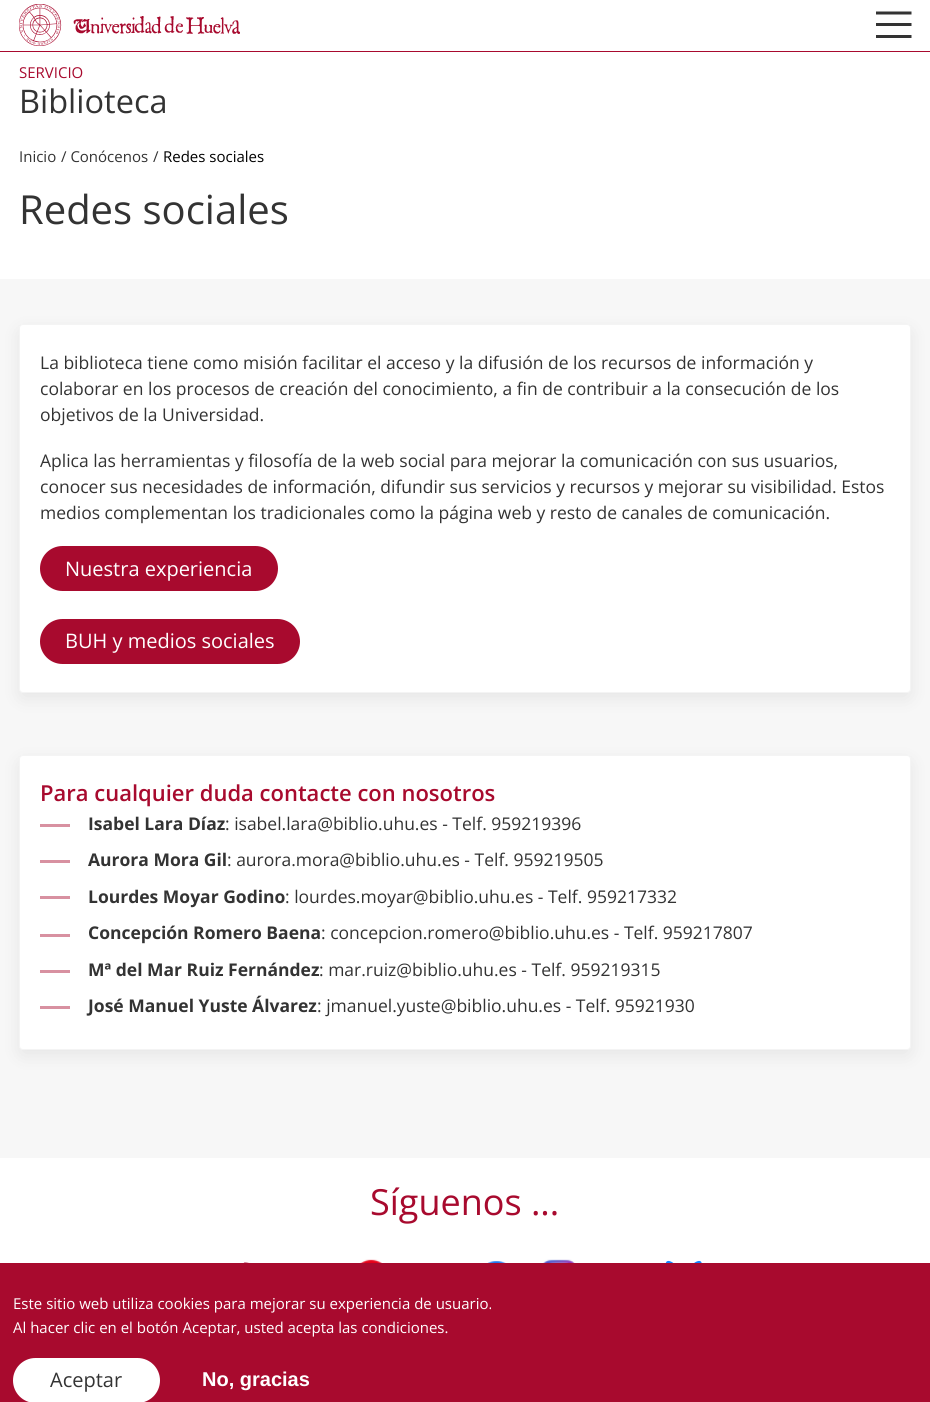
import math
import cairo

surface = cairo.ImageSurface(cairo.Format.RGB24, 930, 1402)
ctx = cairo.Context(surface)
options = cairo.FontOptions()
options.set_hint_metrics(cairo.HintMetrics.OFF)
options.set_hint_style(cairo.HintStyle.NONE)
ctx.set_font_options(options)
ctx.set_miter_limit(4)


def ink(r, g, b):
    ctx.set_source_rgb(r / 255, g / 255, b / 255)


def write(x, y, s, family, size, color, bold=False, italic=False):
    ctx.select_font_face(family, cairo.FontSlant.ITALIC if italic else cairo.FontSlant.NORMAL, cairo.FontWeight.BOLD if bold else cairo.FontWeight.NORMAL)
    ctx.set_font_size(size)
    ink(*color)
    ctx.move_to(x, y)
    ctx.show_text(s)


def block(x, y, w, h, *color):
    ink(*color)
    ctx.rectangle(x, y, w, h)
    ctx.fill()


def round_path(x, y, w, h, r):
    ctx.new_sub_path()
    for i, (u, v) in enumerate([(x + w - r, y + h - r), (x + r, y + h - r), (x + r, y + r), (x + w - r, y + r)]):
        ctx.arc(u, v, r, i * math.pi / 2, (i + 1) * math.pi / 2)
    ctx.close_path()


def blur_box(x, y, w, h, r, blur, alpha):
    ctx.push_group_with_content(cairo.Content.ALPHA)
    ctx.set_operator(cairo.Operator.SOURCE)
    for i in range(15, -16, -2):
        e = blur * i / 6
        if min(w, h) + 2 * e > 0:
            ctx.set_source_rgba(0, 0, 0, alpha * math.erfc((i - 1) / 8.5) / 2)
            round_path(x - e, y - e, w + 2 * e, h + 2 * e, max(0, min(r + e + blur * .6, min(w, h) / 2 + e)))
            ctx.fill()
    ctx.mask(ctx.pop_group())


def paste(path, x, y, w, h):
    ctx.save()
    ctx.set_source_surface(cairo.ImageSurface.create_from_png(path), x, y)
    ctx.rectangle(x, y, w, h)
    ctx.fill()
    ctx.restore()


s1 = dict(family="Open Sans", size=15, color=(168, 10, 46))
s2 = dict(family="Open Sans", size=32.5, color=(51, 51, 51))
s3 = dict(family="Open Sans", size=15, color=(51, 51, 51))
s4 = dict(family="Open Sans", size=15, color=(0, 0, 0))
s5 = dict(family="Open Sans", size=40, color=(51, 51, 51))
s6 = dict(family="Open Sans", size=17.5, color=(51, 51, 51))
s7 = dict(family="Open Sans", size=20, color=(255, 255, 255))
s8 = dict(family="Open Sans SemiBold", size=22, color=(168, 10, 46))
s9 = dict(family="Open Sans", size=17.5, color=(51, 51, 51), bold=True)
s10 = dict(family="Open Sans", size=36, color=(168, 10, 46))
s11 = dict(family="Open Sans", size=15, color=(255, 255, 255))
s12 = dict(family="Open Sans", size=20, color=(51, 51, 51))
s13 = dict(family="Liberation Sans", size=20, color=(255, 255, 255), bold=True)

ink(255, 255, 255)
ctx.paint()
block(0, 51, 930, 1, 168, 10, 46)
paste("pic1.png", 19, 4, 221, 42)
ink(51, 51, 51)
ctx.new_path()
ctx.move_to(876, 11.5)
ctx.line_to(876, 14.5)
ctx.line_to(911.5, 14.5)
ctx.line_to(911.5, 11.5)
ctx.close_path()
ctx.move_to(876, 23)
ctx.line_to(876, 26)
ctx.line_to(911.5, 26)
ctx.line_to(911.5, 23)
ctx.close_path()
ctx.move_to(876, 35)
ctx.line_to(876, 38)
ctx.line_to(911.5, 38)
ctx.line_to(911.5, 35)
ctx.close_path()
ctx.fill()
write(19, 78, "SERVICIO", **s1)
write(19, 113, "Biblioteca", **s2)
write(19, 162, "Inicio", **s3)
write(61, 162, "/ Conócenos", **s3)
write(153, 162, "/", **s3)
write(163, 162, "Redes sociales", **s4)
write(19, 224, "Redes sociales", **s5)
block(0, 279, 930, 879, 247, 247, 247)
ink(0, 0, 0)
blur_box(19, 330, 892, 369, 4, 9.5, 0.07)
ink(255, 255, 255)
round_path(19, 324, 892, 369, 4)
ctx.fill()
round_path(19.5, 324.5, 891, 368, 3.5)
ctx.set_source_rgba(0.851, 0.851, 0.851, 0.3)
ctx.set_line_width(1)
ctx.stroke()
write(40, 369, "La biblioteca tiene como misión facilitar el acceso y la difusión de los recursos de información y", **s6)
write(40, 395, "colaborar en los procesos de creación del conocimiento, a fin de contribuir a la consecución de los", **s6)
write(40, 421, "objetivos de la Universidad.", **s6)
write(40, 467, "Aplica las herramientas y filosofía de la web social para mejorar la comunicación con sus usuarios,", **s6)
write(40, 493, "conocer sus necesidades de información, difundir sus servicios y recursos y mejorar su visibilidad. Estos", **s6)
write(40, 519, "medios complementan los tradicionales como la página web y resto de canales de comunicación.", **s6)
ink(168, 10, 46)
round_path(40, 546, 238, 45, 22.5)
ctx.fill()
write(65, 576, "Nuestra experiencia", **s7)
ink(168, 10, 46)
round_path(40, 619, 260, 45, 22.5)
ctx.fill()
write(65, 648, "BUH y medios sociales", **s7)
ink(0, 0, 0)
blur_box(19, 761, 892, 295, 4, 9.5, 0.07)
ink(255, 255, 255)
round_path(19, 755, 892, 295, 4)
ctx.fill()
round_path(19.5, 755.5, 891, 294, 3.5)
ctx.set_source_rgba(0.851, 0.851, 0.851, 0.3)
ctx.stroke()
write(40, 801, "Para cualquier duda contacte con nosotros", **s8)
block(40, 824, 30, 3, 216, 145, 161)
write(88, 830, "Isabel Lara Díaz", **s9)
write(225, 830, ": isabel.lara@biblio.uhu.es - Telf. 959219396", **s6)
block(40, 860, 30, 3, 216, 145, 161)
write(88, 866, "Aurora Mora Gil", **s9)
write(227, 866, ": aurora.mora@biblio.uhu.es - Telf. 959219505", **s6)
block(40, 896, 30, 3, 216, 145, 161)
write(88, 903, "Lourdes Moyar Godino", **s9)
write(285, 903, ": lourdes.moyar@biblio.uhu.es - Telf. 959217332", **s6)
block(40, 934, 30, 3, 216, 145, 161)
write(88, 939, "Concepción Romero Baena", **s9)
write(321, 939, ": concepcion.romero@biblio.uhu.es - Telf. 959217807", **s6)
block(40, 970, 30, 3, 216, 145, 161)
write(88, 976, "Mª del Mar Ruiz Fernández", **s9)
write(319, 976, ": mar.ruiz@biblio.uhu.es - Telf. 959219315", **s6)
block(40, 1006, 30, 3, 216, 145, 161)
write(88, 1012, "José Manuel Yuste Álvarez", **s9)
write(317, 1012, ": jmanuel.yuste@biblio.uhu.es - Telf. 95921930", **s6)
write(370, 1215, "Síguenos ...", **s10)
paste("pic2.png", 231, 1260, 31, 3)
paste("pic3.png", 353, 1259, 36, 4)
paste("pic4.png", 478, 1261, 36, 2)
paste("pic5.png", 541, 1259, 36, 4)
paste("pic6.png", 665, 1260, 37, 3)
block(0, 1263, 930, 139, 168, 10, 46)
write(13, 1309, "Este sitio web utiliza cookies para mejorar su experiencia de usuario.", **s11)
write(13, 1333, "Al hacer clic en el botón Aceptar, usted acepta las condiciones.", **s11)
round_path(13, 1358, 147, 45, 22.5)
ctx.fill()
write(50, 1387, "Aceptar", **s12)
write(202, 1386, "No, gracias", **s13)
surface.write_to_png("screenshot.png")
